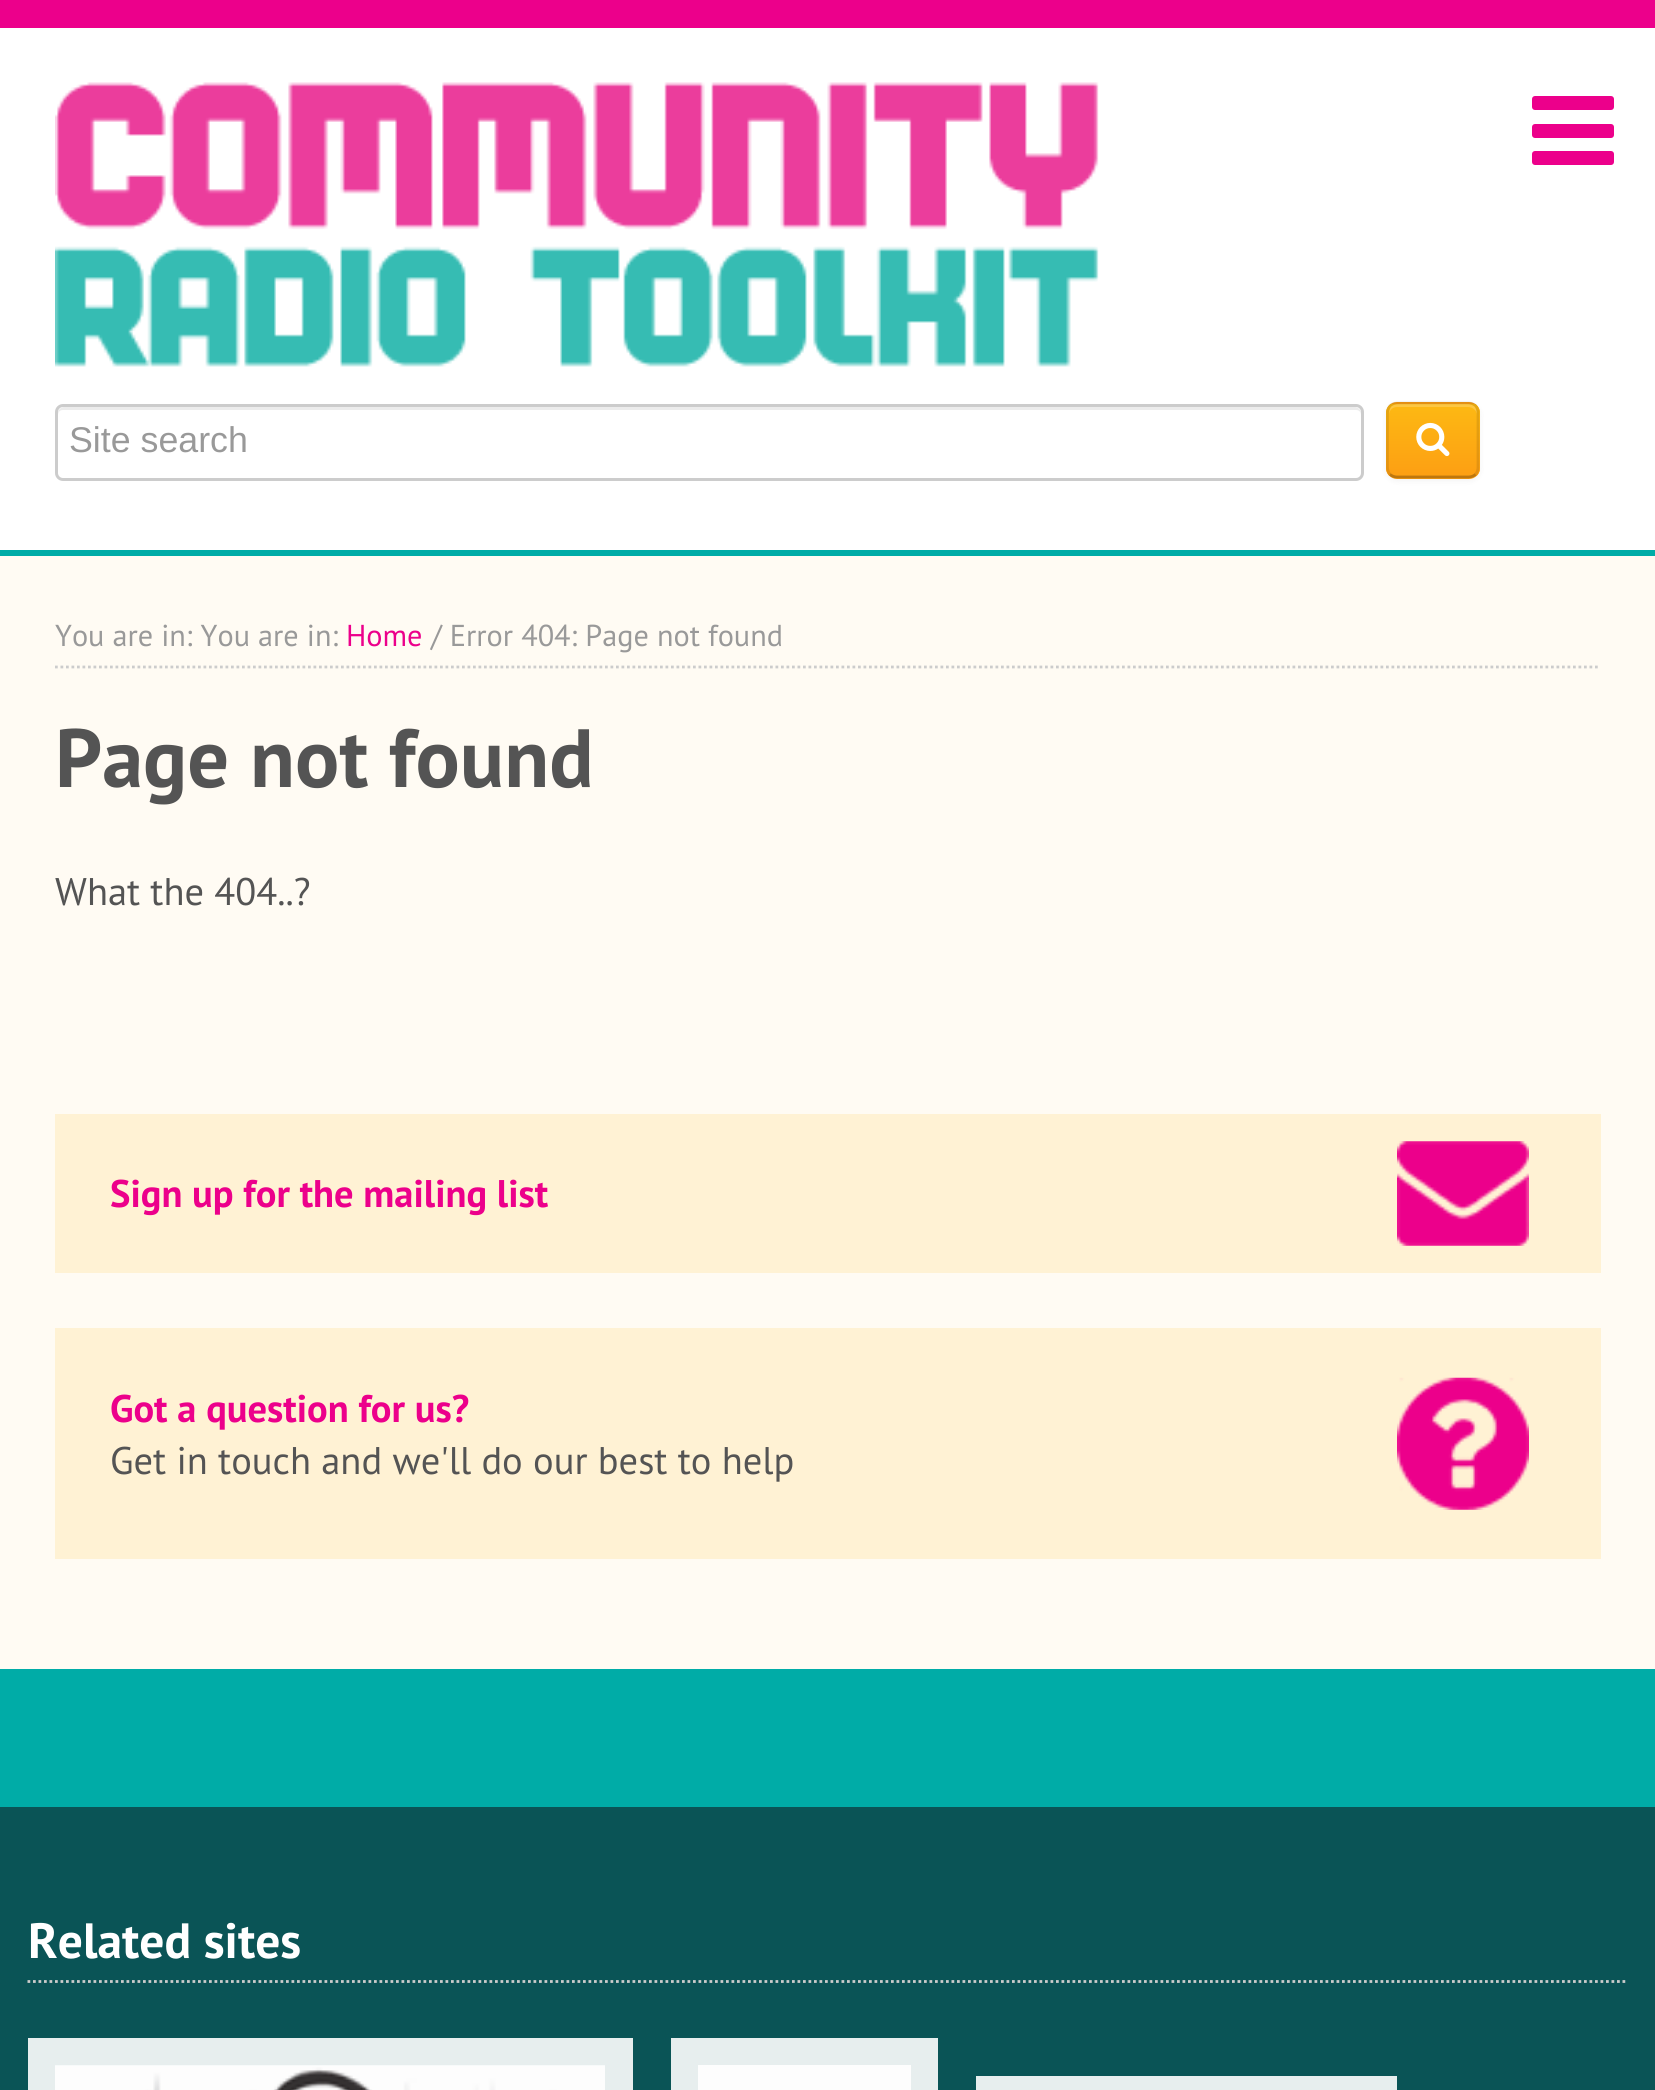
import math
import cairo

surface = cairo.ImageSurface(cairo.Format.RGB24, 1655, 2090)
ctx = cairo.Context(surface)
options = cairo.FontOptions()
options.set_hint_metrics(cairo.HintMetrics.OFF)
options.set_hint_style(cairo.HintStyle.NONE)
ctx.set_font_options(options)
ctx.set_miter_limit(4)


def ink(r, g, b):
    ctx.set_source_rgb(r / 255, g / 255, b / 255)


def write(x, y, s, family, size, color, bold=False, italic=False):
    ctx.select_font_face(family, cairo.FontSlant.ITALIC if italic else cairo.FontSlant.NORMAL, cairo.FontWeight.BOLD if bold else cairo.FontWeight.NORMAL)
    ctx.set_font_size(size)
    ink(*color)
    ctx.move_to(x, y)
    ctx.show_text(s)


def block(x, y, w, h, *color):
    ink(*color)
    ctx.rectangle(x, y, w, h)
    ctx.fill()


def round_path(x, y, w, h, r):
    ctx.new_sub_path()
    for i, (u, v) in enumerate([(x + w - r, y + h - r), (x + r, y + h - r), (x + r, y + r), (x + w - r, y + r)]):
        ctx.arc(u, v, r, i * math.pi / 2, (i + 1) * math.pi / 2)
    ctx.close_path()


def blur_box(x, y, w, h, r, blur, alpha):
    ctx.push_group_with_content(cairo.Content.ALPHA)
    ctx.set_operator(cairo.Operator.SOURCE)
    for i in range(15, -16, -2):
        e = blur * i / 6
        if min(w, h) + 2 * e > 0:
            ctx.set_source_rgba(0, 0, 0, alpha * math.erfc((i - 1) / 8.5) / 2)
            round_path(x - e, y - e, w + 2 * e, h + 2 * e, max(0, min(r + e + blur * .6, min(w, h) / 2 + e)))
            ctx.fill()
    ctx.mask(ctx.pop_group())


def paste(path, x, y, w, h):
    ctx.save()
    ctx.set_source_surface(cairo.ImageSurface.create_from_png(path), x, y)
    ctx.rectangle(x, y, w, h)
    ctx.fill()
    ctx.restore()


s1 = dict(family="Liberation Sans", size=35.75, color=(153, 153, 153))
s2 = dict(family="PT Sans", size=30.25, color=(153, 153, 153))
s3 = dict(family="PT Sans", size=30.25, color=(236, 0, 139))
s4 = dict(family="PT Sans", size=82.5, color=(84, 84, 84), bold=True)
s5 = dict(family="PT Sans", size=38.5, color=(84, 84, 84))
s6 = dict(family="PT Sans", size=38.5, color=(236, 0, 139), bold=True)
s7 = dict(family="PT Sans", size=49.5, color=(255, 255, 255), bold=True)

ink(0, 172, 167)
ctx.paint()
block(0, 28, 1655, 522, 255, 255, 255)
block(0, 0, 1655, 28, 236, 0, 139)
paste("pic1.png", 55, 82, 1044, 285)
round_path(1532, 96, 82, 14, 3)
ctx.fill()
round_path(1532, 124, 82, 14, 3)
ctx.fill()
round_path(1532, 151, 82, 14, 3)
ctx.fill()
ink(236, 236, 236)
ctx.new_path()
ctx.move_to(63, 410)
ctx.line_to(1356, 410)
ctx.curve_to(1359, 410, 1361, 412, 1361, 415)
ctx.line_to(1361, 413)
ctx.curve_to(1361, 410, 1358, 407, 1355, 407)
ctx.line_to(64, 407)
ctx.curve_to(61, 407, 58, 410, 58, 413)
ctx.line_to(58, 415)
ctx.curve_to(58, 412, 60, 410, 63, 410)
ctx.close_path()
ctx.fill()
round_path(56.5, 405.5, 1306, 74, 6.5)
ink(204, 204, 204)
ctx.set_line_width(3)
ctx.stroke()
write(69, 452, "Site search", **s1)
ink(0, 0, 0)
blur_box(1386, 404, 94, 77, 11, 3, 0.05)
ink(253, 159, 19)
round_path(1386, 402, 94, 77, 11)
ctx.fill()
ctx.save()
round_path(1386, 402, 94, 77, 11)
ctx.clip()
gradient = cairo.LinearGradient(1433, 404, 1433, 476)
gradient.add_color_stop_rgba(0, 0.992, 0.725, 0.075, 1)
gradient.add_color_stop_rgba(1, 0.992, 0.624, 0.075, 1)
ctx.set_source(gradient)
ctx.rectangle(1386, 404, 94, 72)
ctx.fill()
ctx.restore()
ctx.set_source_rgba(1, 1, 1, 0.2)
ctx.new_path()
ctx.move_to(1397, 407)
ctx.line_to(1468, 407)
ctx.curve_to(1473, 407, 1477, 411, 1477, 415)
ctx.curve_to(1477, 402, 1468, 404, 1457, 404)
ctx.line_to(1409, 404)
ctx.curve_to(1398, 404, 1389, 402, 1389, 415)
ctx.curve_to(1389, 411, 1392, 407, 1397, 407)
ctx.close_path()
ctx.fill()
ctx.new_path()
ctx.move_to(1475.5, 474.5)
ctx.curve_to(1473.5, 476, 1471, 477, 1468.5, 477)
ctx.line_to(1397, 477)
ctx.curve_to(1394.5, 477, 1392, 476, 1390, 474.5)
ctx.set_source_rgba(0, 0, 0, 0.25)
ctx.set_line_width(2.8)
ctx.stroke()
ctx.new_path()
ctx.move_to(1390, 474.5)
ctx.curve_to(1388.5, 472.5, 1387.5, 470, 1387.5, 467.5)
ctx.line_to(1387.5, 412.5)
ctx.curve_to(1387.5, 410, 1388.5, 407.5, 1390, 405.5)
ctx.curve_to(1392, 404, 1394.5, 403, 1397, 403)
ctx.line_to(1468.5, 403)
ctx.curve_to(1471, 403, 1473.5, 404, 1475.5, 405.5)
ctx.curve_to(1477, 407.5, 1478, 410, 1478, 412.5)
ctx.line_to(1478, 467.5)
ctx.curve_to(1478, 470, 1477, 472.5, 1475.5, 474.5)
ctx.set_source_rgba(0, 0, 0, 0.1)
ctx.stroke()
paste("pic2.png", 1416, 422, 34, 35)
block(0, 556, 1655, 1113, 255, 251, 243)
ctx.new_path()
ctx.move_to(55, 667)
ctx.line_to(1600.5, 667)
ink(204, 204, 204)
ctx.set_dash([2.75, 2.75])
ctx.stroke()
write(55, 646, "You are in: You are in:", **s2)
write(346, 646, "Home", **s3)
write(431, 646, "/ Error 404: Page not found", **s2)
write(55, 787, "Page not found", **s4)
write(55, 905, "What the 404..?", **s5)
block(55, 1114, 1546, 159, 255, 242, 212)
paste("pic3.png", 1397, 1141, 132, 105)
write(110, 1207, "Sign up for the mailing list", **s6)
block(55, 1328, 1546, 231, 255, 242, 212)
paste("pic4.png", 1397, 1377, 132, 133)
write(110, 1422, "Got a question for us?", **s6)
write(110, 1474, "Get in touch and we'll do our best to help", **s5)
block(0, 1807, 1655, 283, 10, 84, 86)
ctx.new_path()
ctx.move_to(27.5, 1981.5)
ctx.line_to(1628, 1981.5)
ink(204, 204, 204)
ctx.stroke()
write(28, 1958, "Related sites", **s7)
block(28, 2038, 605, 52, 231, 238, 238)
block(671, 2038, 267, 52, 231, 238, 238)
paste("pic5.png", 55, 2065, 550, 25)
block(698, 2065, 213, 25, 253, 253, 253)
block(976, 2076, 421, 14, 231, 238, 238)
surface.write_to_png("screenshot.png")
